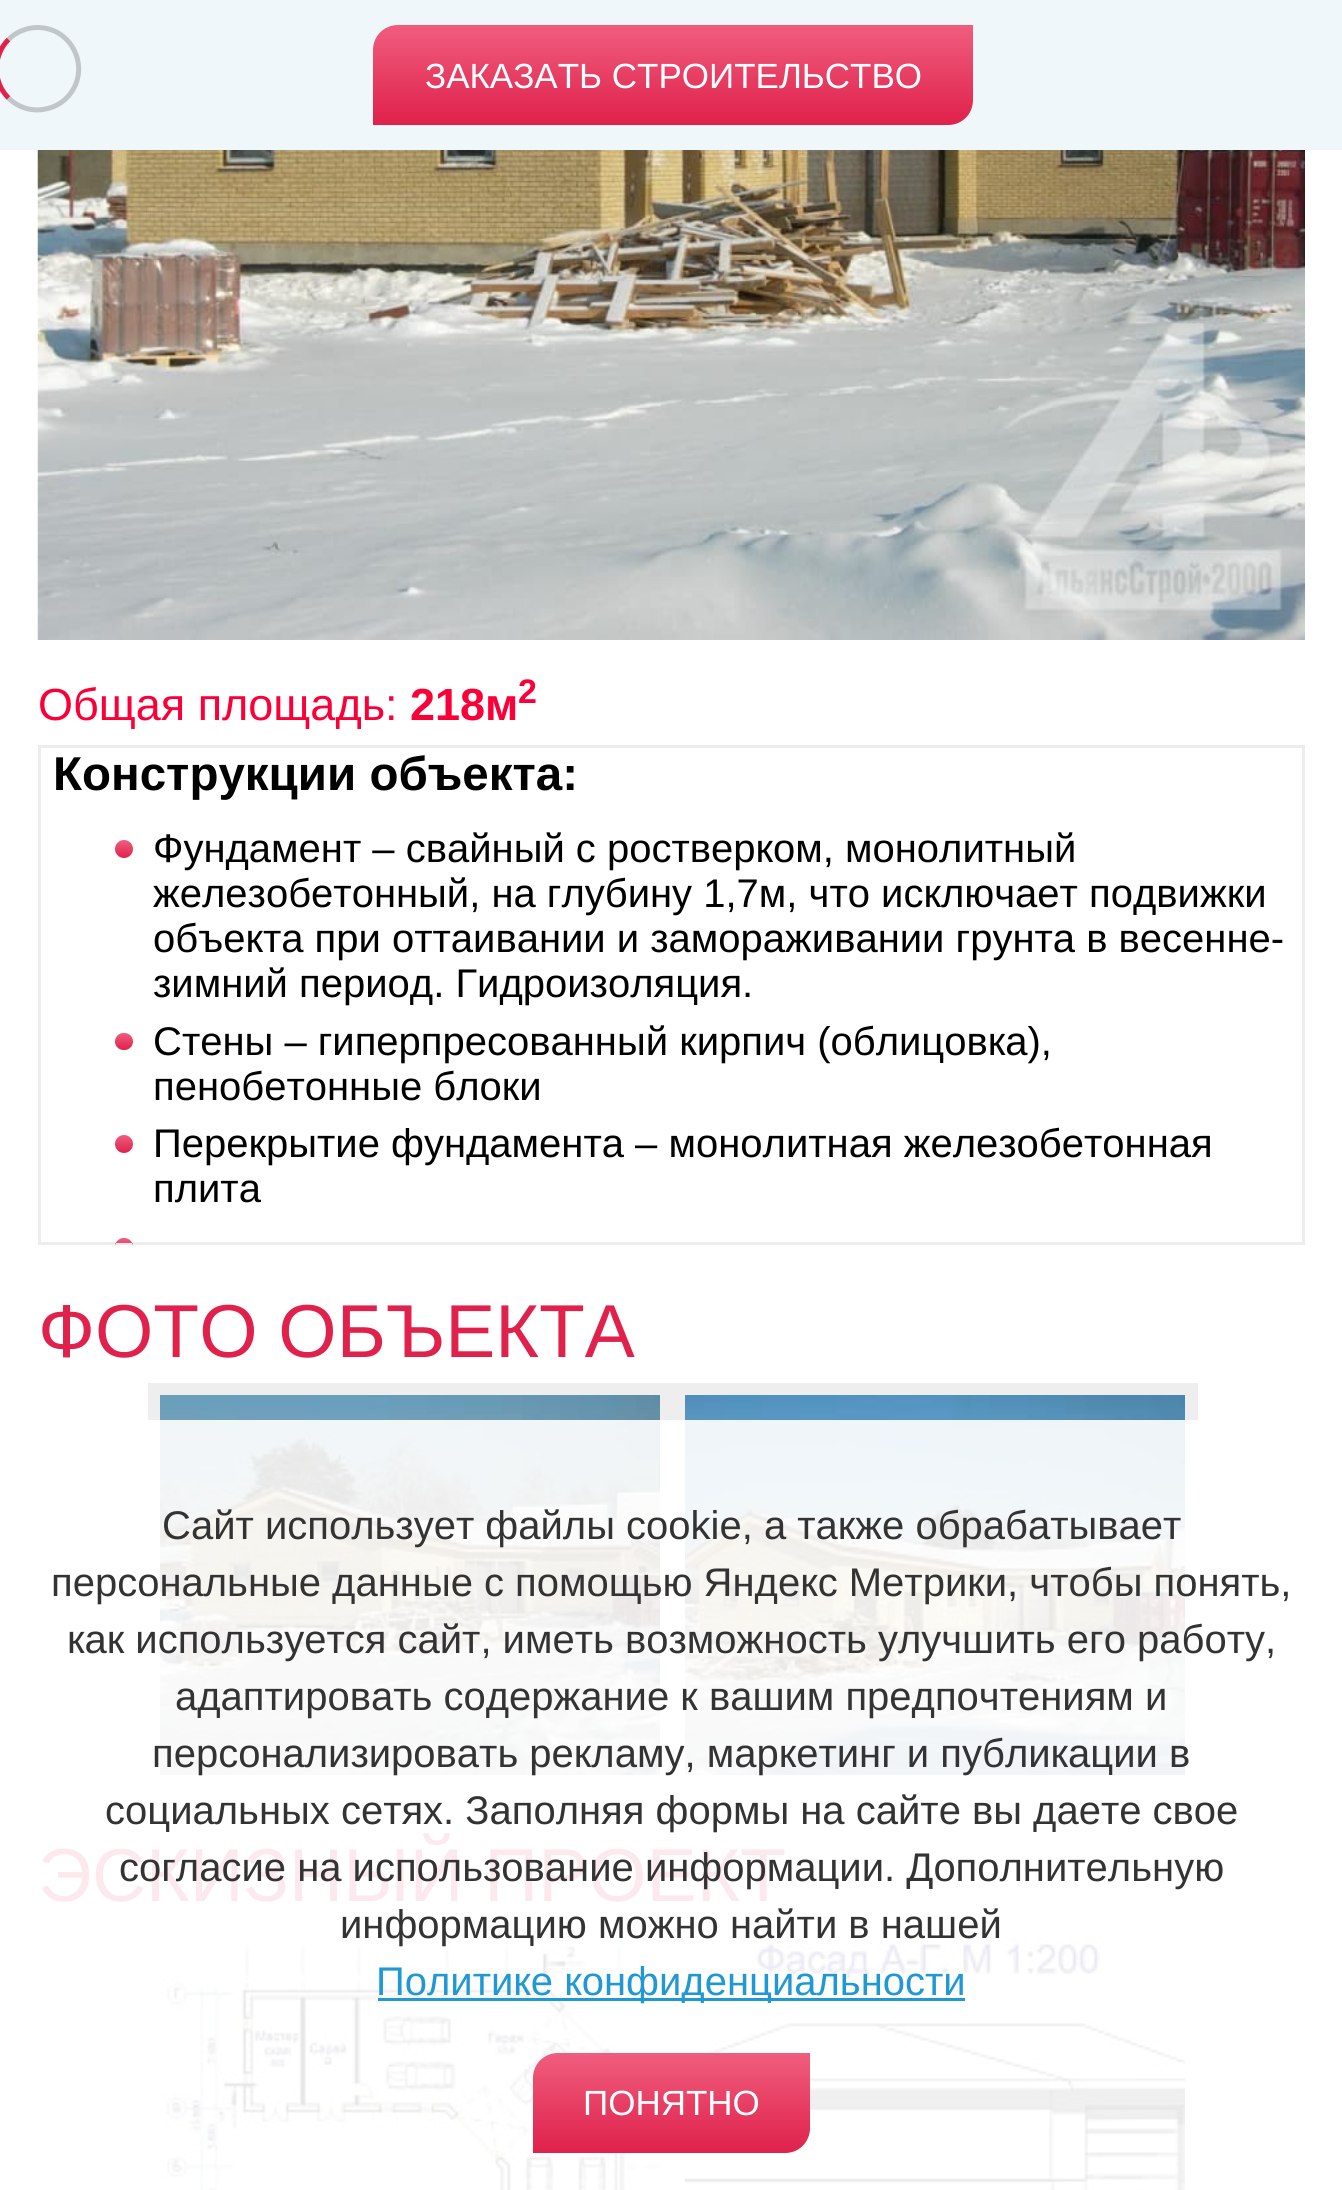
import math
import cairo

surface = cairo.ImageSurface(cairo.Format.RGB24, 1342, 2190)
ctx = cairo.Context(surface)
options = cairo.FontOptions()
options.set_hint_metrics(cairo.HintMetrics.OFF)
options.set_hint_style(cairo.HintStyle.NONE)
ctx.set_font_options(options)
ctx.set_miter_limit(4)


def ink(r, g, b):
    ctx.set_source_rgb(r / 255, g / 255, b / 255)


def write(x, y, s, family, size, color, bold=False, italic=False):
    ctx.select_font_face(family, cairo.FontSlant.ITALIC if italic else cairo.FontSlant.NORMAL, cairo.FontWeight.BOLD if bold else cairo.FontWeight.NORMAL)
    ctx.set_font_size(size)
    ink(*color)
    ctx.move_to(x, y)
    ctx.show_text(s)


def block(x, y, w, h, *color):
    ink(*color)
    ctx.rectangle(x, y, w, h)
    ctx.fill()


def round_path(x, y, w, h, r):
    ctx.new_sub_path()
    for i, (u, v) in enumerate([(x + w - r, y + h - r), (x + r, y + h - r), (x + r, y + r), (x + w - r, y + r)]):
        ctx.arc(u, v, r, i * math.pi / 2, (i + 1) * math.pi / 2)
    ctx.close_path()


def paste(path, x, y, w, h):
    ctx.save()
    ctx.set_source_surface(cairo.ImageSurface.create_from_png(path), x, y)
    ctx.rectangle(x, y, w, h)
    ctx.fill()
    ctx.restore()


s1 = dict(family="Liberation Sans", size=35, color=(255, 255, 255))
s2 = dict(family="Liberation Sans", size=45, color=(251, 0, 56))
s3 = dict(family="Liberation Sans", size=45, color=(251, 0, 56), bold=True)
s4 = dict(family="Liberation Sans", size=34, color=(251, 0, 56), bold=True)
s5 = dict(family="Liberation Sans", size=47.5, color=(0, 0, 0), bold=True)
s6 = dict(family="Liberation Sans", size=40, color=(0, 0, 0))
s7 = dict(family="Liberation Sans", size=75, color=(223, 33, 75))
s8 = dict(family="Liberation Sans", size=75, color=(252, 233, 237))
s9 = dict(family="Liberation Sans", size=40, color=(51, 51, 51))
s10 = dict(family="Liberation Sans", size=40, color=(31, 152, 212))

ink(255, 255, 255)
ctx.paint()
block(0, 0, 1342, 150, 240, 247, 251)
ctx.new_path()
ctx.move_to(8.5, 39.5)
ctx.curve_to(16, 32, 26.5, 27.5, 37.5, 27.5)
ctx.curve_to(74, 27.5, 92.5, 72, 66.5, 98)
ctx.curve_to(61, 103.5, 53.5, 107.5, 45.5, 109)
ctx.curve_to(32, 112, 18, 107.5, 8.5, 98)
ink(192, 198, 201)
ctx.set_line_width(5)
ctx.stroke()
ctx.new_path()
ctx.move_to(8.5, 98)
ctx.curve_to(-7.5, 82, -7.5, 55.5, 8.5, 39.5)
ink(223, 33, 75)
ctx.stroke()
gradient = cairo.LinearGradient(673, 25, 673, 125)
gradient.add_color_stop_rgba(0, 0.941, 0.365, 0.494, 1)
gradient.add_color_stop_rgba(1, 0.875, 0.129, 0.294, 1)
ctx.set_source(gradient)
ctx.new_path()
ctx.move_to(398, 25)
ctx.line_to(973, 25)
ctx.line_to(973, 100)
ctx.curve_to(973, 114, 962, 125, 948, 125)
ctx.line_to(373, 125)
ctx.line_to(373, 50)
ctx.curve_to(373, 36, 384, 25, 398, 25)
ctx.close_path()
ctx.fill()
write(425, 88, "ЗАКАЗАТЬ СТРОИТЕЛЬСТВО", **s1)
paste("pic1.png", 37, 150, 1268, 490)
write(38, 720, "Общая площадь:", **s2)
write(410, 720, "218м", **s3)
write(518, 703, "2", **s4)
ctx.rectangle(39.5, 746.5, 1264, 497)
ink(237, 237, 237)
ctx.set_line_width(3)
ctx.stroke()
write(53, 790, "Конструкции объекта:", **s5)
gradient = cairo.LinearGradient(124, 840, 124, 858)
gradient.add_color_stop_rgba(0, 0.941, 0.365, 0.494, 1)
gradient.add_color_stop_rgba(1, 0.875, 0.129, 0.294, 1)
ctx.set_source(gradient)
ctx.new_path()
ctx.arc(124, 849, 9, 0, 2 * math.pi)
ctx.fill()
write(153, 862, "Фундамент – свайный с ростверком, монолитный", **s6)
write(153, 907, "железобетонный, на глубину 1,7м, что исключает подвижки", **s6)
write(153, 952, "объекта при оттаивании и замораживании грунта в весенне-", **s6)
write(153, 997, "зимний период. Гидроизоляция.", **s6)
gradient = cairo.LinearGradient(124, 1033, 124, 1050)
gradient.add_color_stop_rgba(0, 0.941, 0.365, 0.494, 1)
gradient.add_color_stop_rgba(1, 0.875, 0.129, 0.294, 1)
ctx.set_source(gradient)
round_path(115, 1033, 18, 17, 8.5)
ctx.fill()
write(153, 1055, "Стены – гиперпресованный кирпич (облицовка),", **s6)
write(153, 1100, "пенобетонные блоки", **s6)
gradient = cairo.LinearGradient(124, 1135, 124, 1153)
gradient.add_color_stop_rgba(0, 0.941, 0.365, 0.494, 1)
gradient.add_color_stop_rgba(1, 0.875, 0.129, 0.294, 1)
ctx.set_source(gradient)
ctx.new_path()
ctx.arc(124, 1144, 9, 0, 2 * math.pi)
ctx.fill()
write(153, 1157, "Перекрытие фундамента – монолитная железобетонная", **s6)
write(153, 1202, "плита", **s6)
gradient = cairo.LinearGradient(124, 1238, 124, 1255)
gradient.add_color_stop_rgba(0, 0.941, 0.365, 0.494, 1)
gradient.add_color_stop_rgba(1, 0.875, 0.129, 0.294, 1)
ctx.set_source(gradient)
ctx.new_path()
ctx.move_to(123.5, 1238)
ctx.line_to(124.5, 1238)
ctx.curve_to(129, 1238, 133, 1242, 133, 1246.5)
ctx.line_to(133, 1243)
ctx.line_to(115, 1243)
ctx.line_to(115, 1246.5)
ctx.curve_to(115, 1242, 119, 1238, 123.5, 1238)
ctx.close_path()
ctx.fill()
write(38, 1357, "ФОТО ОБЪЕКТА", **s7)
block(148, 1383, 1050, 37, 238, 238, 238)
paste("pic2.png", 160, 1395, 500, 380)
paste("pic3.png", 685, 1395, 500, 380)
write(38, 1901, "ЭСКИЗНЫЙ ПРОЕКТ", **s8)
paste("pic4.png", 160, 1937, 500, 253)
paste("pic5.png", 685, 1937, 500, 253)
write(162, 1539, "Сайт использует файлы cookie, а также обрабатывает", **s9)
write(51, 1596, "персональные данные с помощью Яндекс Метрики, чтобы понять,", **s9)
write(67, 1653, "как используется сайт, иметь возможность улучшить его работу,", **s9)
write(175, 1710, "адаптировать содержание к вашим предпочтениям и", **s9)
write(152, 1767, "персонализировать рекламу, маркетинг и публикации в", **s9)
write(105, 1824, "социальных сетях. Заполняя формы на сайте вы даете свое", **s9)
write(119, 1881, "согласие на использование информации. Дополнительную", **s9)
write(340, 1938, "информацию можно найти в нашей", **s9)
block(378, 1998, 587, 3, 31, 152, 212)
write(376, 1995, "Политике конфиденциальности", **s10)
gradient = cairo.LinearGradient(671, 2053, 671, 2153)
gradient.add_color_stop_rgba(0, 0.941, 0.365, 0.494, 1)
gradient.add_color_stop_rgba(1, 0.875, 0.129, 0.294, 1)
ctx.set_source(gradient)
ctx.new_path()
ctx.move_to(558, 2053)
ctx.line_to(810, 2053)
ctx.line_to(810, 2128)
ctx.curve_to(810, 2142, 799, 2153, 785, 2153)
ctx.line_to(533, 2153)
ctx.line_to(533, 2078)
ctx.curve_to(533, 2064, 544, 2053, 558, 2053)
ctx.close_path()
ctx.fill()
write(583, 2115, "ПОНЯТНО", **s1)
surface.write_to_png("screenshot.png")
